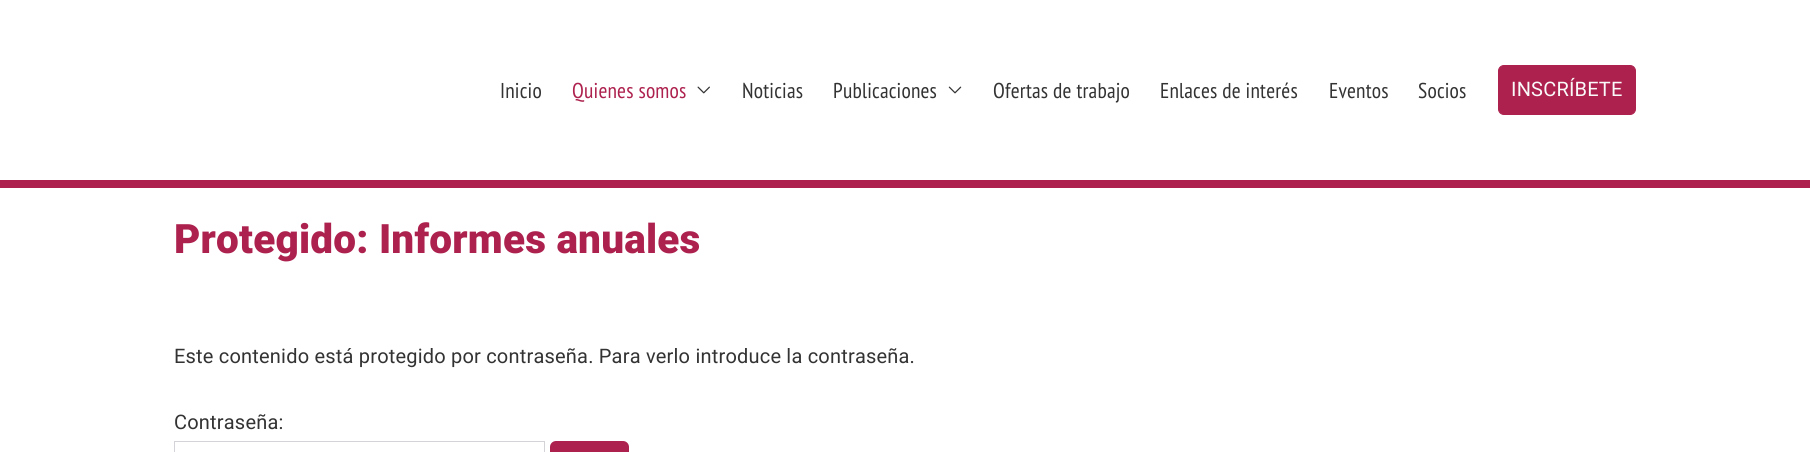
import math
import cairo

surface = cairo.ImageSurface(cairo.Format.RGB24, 1810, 452)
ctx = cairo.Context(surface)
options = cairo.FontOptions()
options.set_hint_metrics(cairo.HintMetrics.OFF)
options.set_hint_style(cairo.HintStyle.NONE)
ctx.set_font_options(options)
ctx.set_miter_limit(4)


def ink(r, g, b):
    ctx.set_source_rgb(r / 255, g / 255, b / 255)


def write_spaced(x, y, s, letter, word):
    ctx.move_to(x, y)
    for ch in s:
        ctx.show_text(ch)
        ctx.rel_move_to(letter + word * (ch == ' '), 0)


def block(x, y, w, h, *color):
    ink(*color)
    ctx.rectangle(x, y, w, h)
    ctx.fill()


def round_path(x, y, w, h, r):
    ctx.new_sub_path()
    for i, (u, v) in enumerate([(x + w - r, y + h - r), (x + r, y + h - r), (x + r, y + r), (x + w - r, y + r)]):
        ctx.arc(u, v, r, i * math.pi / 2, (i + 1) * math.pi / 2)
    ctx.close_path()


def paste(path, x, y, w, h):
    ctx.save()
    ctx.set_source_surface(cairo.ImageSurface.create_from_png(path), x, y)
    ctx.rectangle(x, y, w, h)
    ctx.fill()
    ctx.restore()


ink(173, 33, 78)
ctx.paint()
block(0, 0, 1810, 180, 255, 255, 255)
ctx.select_font_face("PT Sans Narrow")
ctx.set_font_size(21.5)
ink(51, 51, 51)
write_spaced(500, 98, "Inicio", 0.2, 0)
ink(173, 33, 78)
write_spaced(572, 98, "Quienes somos", 0.2, 0)
paste("pic1.png", 697, 86, 13, 8)
ink(51, 51, 51)
write_spaced(742, 98, "Noticias", 0.2, 0)
write_spaced(833, 98, "Publicaciones", 0.2, 0)
paste("pic2.png", 948, 86, 14, 8)
write_spaced(993, 98, "Ofertas de trabajo", 0.2, 0)
write_spaced(1160, 98, "Enlaces de interés", 0.2, 0)
write_spaced(1329, 98, "Eventos", 0.2, 0)
write_spaced(1418, 98, "Socios", 0.2, 0)
ink(173, 33, 78)
round_path(1498.5, 65.5, 137, 49, 5.5)
ctx.fill_preserve()
ctx.set_line_width(1)
ctx.stroke()
ctx.select_font_face("Roboto")
ctx.set_font_size(20)
ink(250, 250, 250)
write_spaced(1511, 96, "INSCRÍBETE", 0.2, 0)
block(0, 188, 1810, 264, 255, 255, 255)
ctx.select_font_face("Roboto Black")
ctx.set_font_size(40.5)
ink(173, 33, 78)
write_spaced(174, 253, "Protegido: Informes anuales", 0.2, 0)
ctx.select_font_face("Roboto")
ctx.set_font_size(20)
ink(51, 51, 51)
write_spaced(174, 363, "Este contenido está protegido por contraseña. Para verlo introduce la contraseña.", 0.2, 0)
write_spaced(174, 429, "Contraseña:", 0.2, 0)
ctx.rectangle(174.5, 441.5, 370, 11)
ink(212, 212, 216)
ctx.stroke()
ink(173, 33, 78)
round_path(550, 441, 79, 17, 6)
ctx.fill()
surface.write_to_png("screenshot.png")
